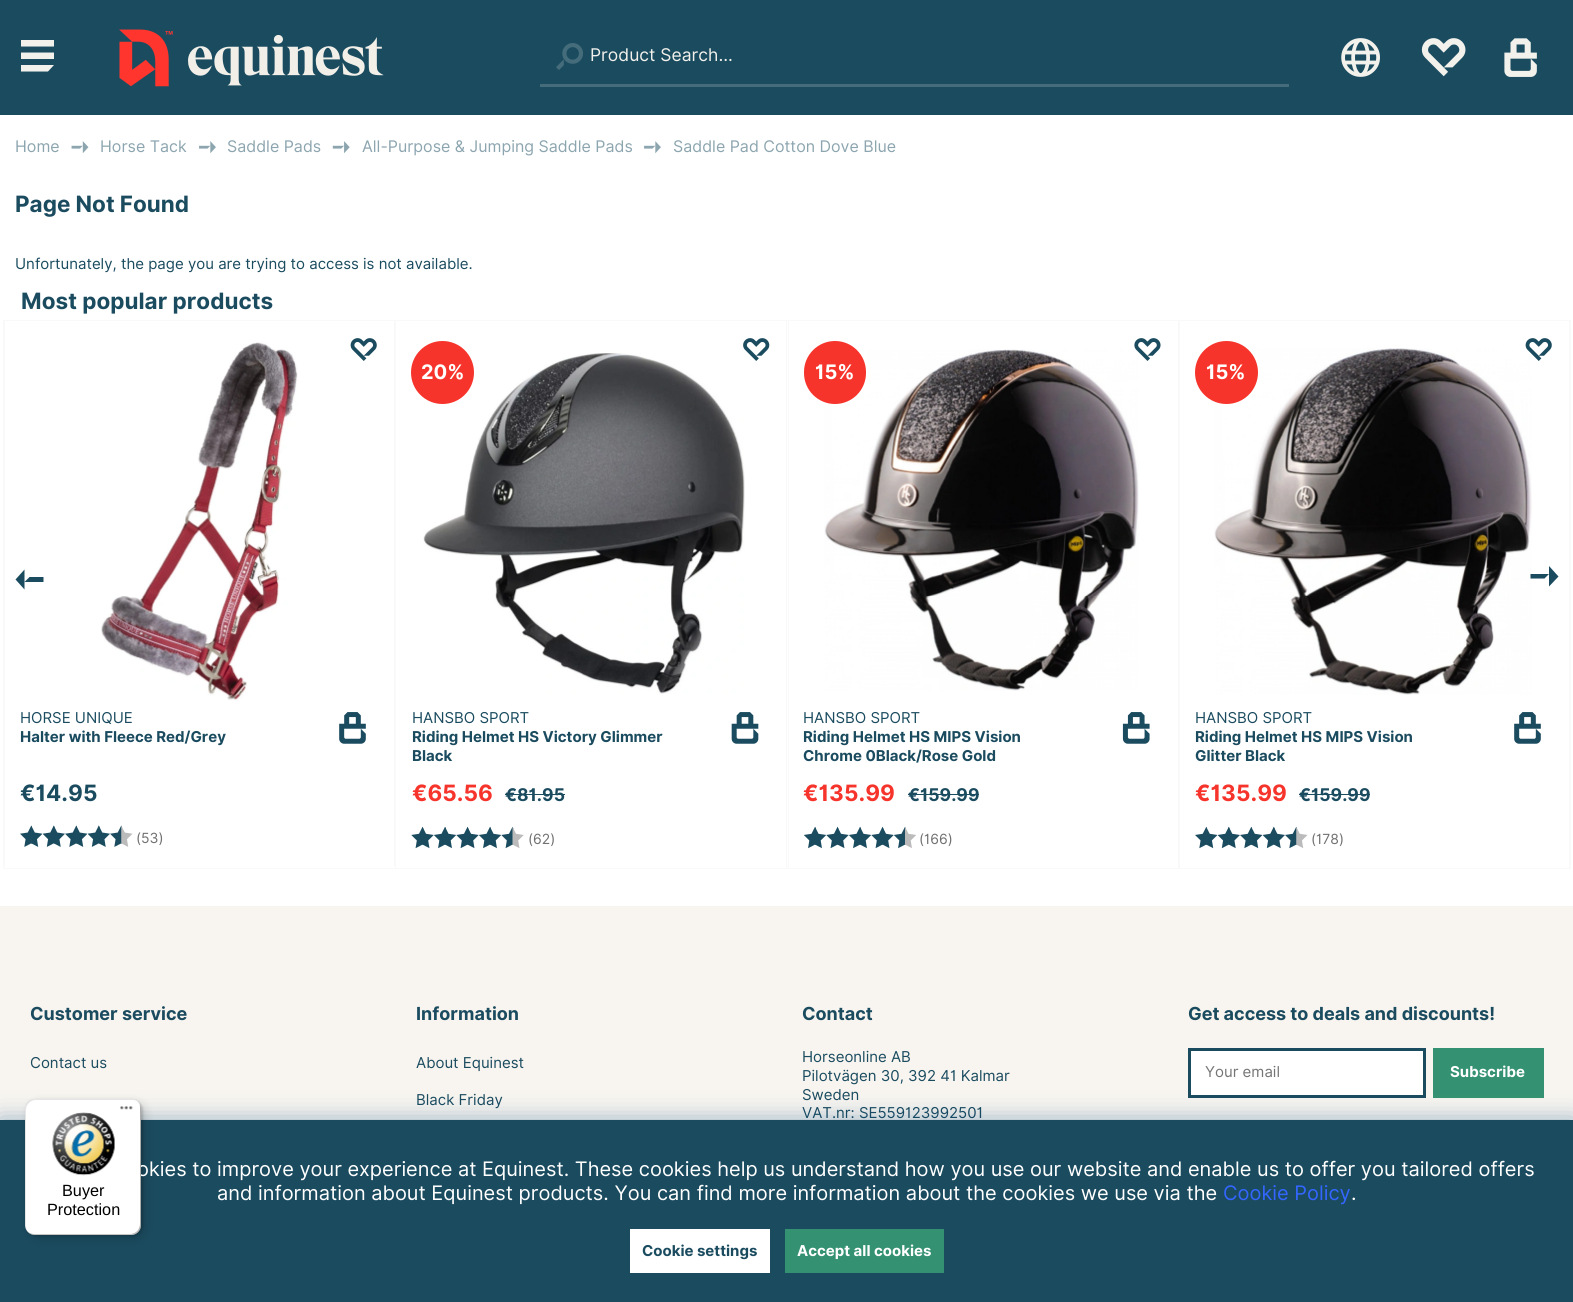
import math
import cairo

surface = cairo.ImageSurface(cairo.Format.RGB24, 1573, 1302)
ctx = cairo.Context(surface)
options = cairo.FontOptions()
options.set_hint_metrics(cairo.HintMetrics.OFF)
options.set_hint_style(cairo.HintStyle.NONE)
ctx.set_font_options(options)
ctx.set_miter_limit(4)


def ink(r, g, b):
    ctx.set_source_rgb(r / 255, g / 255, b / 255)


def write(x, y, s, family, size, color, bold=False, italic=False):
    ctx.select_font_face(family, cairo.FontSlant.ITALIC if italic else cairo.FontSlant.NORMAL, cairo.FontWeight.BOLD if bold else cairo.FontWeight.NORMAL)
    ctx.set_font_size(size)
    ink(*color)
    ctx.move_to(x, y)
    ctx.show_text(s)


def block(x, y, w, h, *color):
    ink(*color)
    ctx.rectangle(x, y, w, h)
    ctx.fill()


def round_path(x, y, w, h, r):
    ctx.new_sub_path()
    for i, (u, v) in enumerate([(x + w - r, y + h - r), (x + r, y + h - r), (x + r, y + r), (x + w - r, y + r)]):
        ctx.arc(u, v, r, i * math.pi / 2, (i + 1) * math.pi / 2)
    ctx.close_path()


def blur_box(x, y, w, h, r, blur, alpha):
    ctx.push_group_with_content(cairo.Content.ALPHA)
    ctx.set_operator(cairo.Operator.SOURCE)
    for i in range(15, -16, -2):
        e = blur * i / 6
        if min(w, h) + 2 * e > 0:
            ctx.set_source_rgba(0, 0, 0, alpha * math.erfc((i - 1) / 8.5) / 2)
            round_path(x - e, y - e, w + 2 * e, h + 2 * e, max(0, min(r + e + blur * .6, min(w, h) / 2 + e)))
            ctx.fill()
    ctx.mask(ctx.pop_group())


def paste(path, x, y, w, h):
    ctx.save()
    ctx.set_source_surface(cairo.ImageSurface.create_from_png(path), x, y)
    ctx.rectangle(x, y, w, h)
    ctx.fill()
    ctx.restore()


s1 = dict(family="Inter", size=17.5, color=(242, 241, 236))
s2 = dict(family="Inter", size=16, color=(140, 165, 175))
s3 = dict(family="Inter", size=22.5, color=(26, 75, 95), bold=True)
s4 = dict(family="Inter", size=15, color=(26, 75, 95))
s5 = dict(family="Inter", size=15, color=(26, 75, 95), bold=True)
s6 = dict(family="Inter", size=14, color=(113, 111, 111))
s7 = dict(family="Inter", size=20, color=(255, 255, 255), bold=True)
s8 = dict(family="Inter", size=22.5, color=(246, 52, 43), bold=True)
s9 = dict(family="Inter", size=17.5, color=(26, 75, 95), bold=True)
s10 = dict(family="Inter", size=18, color=(26, 75, 95), bold=True)
s11 = dict(family="Inter", size=15, color=(117, 117, 117))
s12 = dict(family="Inter", size=15, color=(255, 255, 255), bold=True)
s13 = dict(family="Inter", size=20, color=(255, 255, 255))
s14 = dict(family="Liberation Sans", size=16.25, color=(0, 0, 0))
s15 = dict(family="Inter", size=20, color=(51, 102, 255))

ink(255, 255, 255)
ctx.paint()
block(0, 0, 1573, 115, 26, 75, 95)
ink(242, 241, 236)
ctx.new_path()
ctx.move_to(54, 65)
ctx.line_to(48, 71.5)
ctx.line_to(21, 71.5)
ctx.line_to(21, 65)
ctx.close_path()
ctx.move_to(54, 52.5)
ctx.line_to(54, 59)
ctx.line_to(21, 59)
ctx.line_to(21, 52.5)
ctx.close_path()
ctx.move_to(54, 40)
ctx.line_to(54, 46.5)
ctx.line_to(21, 46.5)
ctx.line_to(21, 40)
ctx.close_path()
ctx.fill()
paste("pic1.png", 119, 29, 54, 58)
paste("pic2.png", 188, 34, 196, 52)
paste("pic3.png", 556, 43, 27, 27)
block(540, 84, 749, 3, 69, 108, 123)
write(590, 61, "Product Search...", **s1)
paste("pic4.png", 1341, 38, 39, 39)
paste("pic5.png", 1421, 38, 45, 39)
paste("pic6.png", 1504, 38, 33, 39)
write(15, 152, "Home", **s2)
paste("pic7.png", 71, 141, 18, 13)
write(100, 152, "Horse Tack", **s2)
paste("pic8.png", 199, 141, 17, 13)
write(227, 152, "Saddle Pads", **s2)
paste("pic9.png", 332, 141, 18, 13)
write(362, 152, "All-Purpose & Jumping Saddle Pads", **s2)
paste("pic8.png", 644, 141, 17, 13)
write(673, 152, "Saddle Pad Cotton Dove Blue", **s2)
write(15, 212, "Page Not Found", **s3)
write(15, 269, "Unfortunately, the page you are trying to access is not available.", **s4)
write(21, 309, "Most popular products", **s3)
ctx.rectangle(3.5, 320.5, 1567, 548)
ink(249, 249, 249)
ctx.set_line_width(1)
ctx.stroke()
block(394, 321, 1, 545, 249, 249, 249)
block(4, 321, 1, 545, 249, 249, 249)
paste("pic10.png", 101, 342, 197, 359)
paste("pic11.png", 350, 338, 27, 23)
write(20, 723, "HORSE UNIQUE", **s4)
write(20, 742, "Halter with Fleece Red/Grey", **s5)
paste("pic12.png", 339, 712, 27, 32)
write(20, 801, "€14.95", **s3)
paste("pic13.png", 20, 825, 23, 22)
paste("pic14.png", 43, 825, 22, 22)
paste("pic13.png", 65, 825, 23, 22)
paste("pic14.png", 88, 825, 22, 22)
paste("pic15.png", 110, 825, 23, 22)
write(136, 843, "(53)", **s6)
block(786, 321, 1, 547, 249, 249, 249)
block(395, 321, 1, 547, 249, 249, 249)
paste("pic17.png", 423, 353, 322, 341)
paste("pic16.png", 743, 338, 27, 23)
ink(246, 52, 43)
ctx.arc(442.5, 372.5, 31.5, 0, 2 * math.pi)
ctx.fill()
write(421, 379, "20%", **s7)
write(412, 723, "HANSBO SPORT", **s4)
write(412, 742, "Riding Helmet HS Victory Glimmer", **s5)
write(412, 761, "Black", **s5)
paste("pic18.png", 731, 712, 28, 32)
write(412, 801, "€65.56", **s8)
write(505, 801, "€81.95", **s9)
block(505, 794, 60, 1, 26, 75, 95)
paste("pic19.png", 411, 826, 23, 23)
paste("pic20.png", 434, 826, 22, 23)
paste("pic19.png", 456, 826, 23, 23)
paste("pic20.png", 479, 826, 22, 23)
paste("pic21.png", 501, 826, 23, 23)
write(528, 844, "(62)", **s6)
block(1178, 321, 2, 547, 249, 249, 249)
block(788, 321, 1, 547, 249, 249, 249)
paste("pic23.png", 824, 349, 315, 342)
paste("pic22.png", 1134, 338, 27, 23)
ink(246, 52, 43)
round_path(804, 341, 62, 63, 31)
ctx.fill()
write(815, 379, "15%", **s7)
write(803, 723, "HANSBO SPORT", **s4)
write(803, 742, "Riding Helmet HS MIPS Vision", **s5)
write(803, 761, "Chrome 0Black/Rose Gold", **s5)
paste("pic24.png", 1122, 712, 28, 32)
write(803, 801, "€135.99", **s8)
write(908, 801, "€159.99", **s9)
block(908, 794, 71, 1, 26, 75, 95)
paste("pic20.png", 804, 826, 22, 23)
paste("pic19.png", 826, 826, 23, 23)
paste("pic20.png", 849, 826, 22, 23)
paste("pic19.png", 871, 826, 23, 23)
paste("pic25.png", 894, 826, 22, 23)
write(919, 844, "(166)", **s6)
block(1569, 321, 1, 547, 249, 249, 249)
paste("pic27.png", 1214, 348, 318, 347)
paste("pic26.png", 1525, 338, 27, 23)
ink(246, 52, 43)
ctx.arc(1226.5, 372.5, 31.5, 0, 2 * math.pi)
ctx.fill()
write(1206, 379, "15%", **s7)
write(1195, 723, "HANSBO SPORT", **s4)
write(1195, 742, "Riding Helmet HS MIPS Vision", **s5)
write(1195, 761, "Glitter Black", **s5)
paste("pic12.png", 1514, 712, 27, 32)
write(1195, 801, "€135.99", **s8)
write(1299, 801, "€159.99", **s9)
block(1299, 794, 71, 1, 26, 75, 95)
paste("pic28.png", 1195, 826, 23, 23)
paste("pic29.png", 1218, 826, 22, 23)
paste("pic28.png", 1240, 826, 23, 23)
paste("pic29.png", 1263, 826, 22, 23)
paste("pic30.png", 1285, 826, 23, 23)
write(1311, 844, "(178)", **s6)
ink(26, 75, 95)
ctx.new_path()
ctx.move_to(1549, 566)
ctx.line_to(1558.5, 576.5)
ctx.line_to(1549, 586.5)
ctx.close_path()
ctx.move_to(1549, 574)
ctx.line_to(1544.5, 578.5)
ctx.line_to(1530.5, 578.5)
ctx.line_to(1530.5, 574)
ctx.close_path()
ctx.fill()
ctx.new_path()
ctx.move_to(24.5, 589.5)
ctx.line_to(15.5, 579.5)
ctx.line_to(24.5, 569.5)
ctx.close_path()
ctx.move_to(24.5, 582)
ctx.line_to(29.5, 577)
ctx.line_to(43.5, 577)
ctx.line_to(43.5, 582)
ctx.close_path()
ctx.fill()
block(0, 906, 1573, 214, 248, 245, 240)
write(30, 1020, "Customer service", **s10)
write(30, 1068, "Contact us", **s4)
write(416, 1020, "Information", **s10)
write(416, 1068, "About Equinest", **s4)
write(416, 1105, "Black Friday", **s4)
write(802, 1020, "Contact", **s10)
write(802, 1062, "Horseonline AB", **s4)
write(802, 1081, "Pilotvägen 30, 392 41 Kalmar", **s4)
write(802, 1100, "Sweden", **s4)
write(802, 1118, "VAT.nr: SE559123992501", **s4)
write(1188, 1020, "Get access to deals and discounts!", **s10)
ink(255, 255, 255)
ctx.rectangle(1189.5, 1049.5, 235, 47)
ctx.fill_preserve()
ink(26, 75, 95)
ctx.set_line_width(3)
ctx.stroke()
write(1205, 1077, "Your email", **s11)
block(1433, 1048, 111, 50, 52, 145, 114)
write(1450, 1077, "Subscribe", **s12)
ink(0, 66, 122)
blur_box(0, 1121, 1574, 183, 0, 12.5, 0.44)
block(0, 1120, 1573, 182, 27, 75, 95)
ink(0, 0, 0)
blur_box(29, 1103, 116, 136, 10, 5, 0.15)
blur_box(26, 1100, 117, 136, 10, 1, 0.15)
ink(255, 255, 255)
round_path(25, 1099, 116, 136, 10)
ctx.fill()
ctx.set_source_rgba(0, 0, 0, 0.1)
ctx.new_path()
ctx.move_to(36, 1100)
ctx.line_to(132, 1100)
ctx.curve_to(134, 1100, 136, 1100, 137, 1101)
ctx.curve_to(136, 1100, 133, 1099, 131, 1099)
ctx.line_to(35, 1099)
ctx.curve_to(29, 1099, 25, 1103, 25, 1109)
ctx.line_to(25, 1225)
ctx.curve_to(25, 1228, 26, 1231, 28, 1233)
ctx.curve_to(27, 1231, 26, 1229, 26, 1226)
ctx.line_to(26, 1110)
ctx.curve_to(26, 1104, 31, 1100, 36, 1100)
ctx.close_path()
ctx.fill()
write(137, 1176, "okies to improve your experience at Equinest. These cookies help us understand how you use our website and enable us to offer you tailored offers", **s13)
ctx.set_source_rgba(0, 0, 0, 0.2)
ctx.new_path()
ctx.move_to(27, 1232)
ctx.curve_to(29, 1234, 32, 1235, 35, 1235)
ctx.line_to(131, 1235)
ctx.curve_to(137, 1235, 141, 1231, 141, 1225)
ctx.line_to(141, 1109)
ctx.curve_to(141, 1107, 140, 1104, 139, 1103)
ctx.curve_to(140, 1104, 140, 1106, 140, 1108)
ctx.line_to(140, 1224)
ctx.curve_to(140, 1229, 136, 1234, 130, 1234)
ctx.line_to(34, 1234)
ctx.curve_to(31, 1234, 29, 1233, 27, 1232)
ctx.close_path()
ctx.fill()
ctx.set_source_rgba(0.196, 0.196, 0.196, 0.2)
ctx.new_path()
ctx.move_to(27, 1231)
ctx.curve_to(29, 1234, 32, 1235, 35, 1235)
ctx.line_to(131, 1235)
ctx.curve_to(137, 1235, 141, 1231, 141, 1225)
ctx.line_to(141, 1109)
ctx.curve_to(141, 1107, 140, 1104, 139, 1103)
ctx.curve_to(140, 1104, 140, 1106, 140, 1108)
ctx.line_to(140, 1224)
ctx.curve_to(140, 1230, 136, 1234, 130, 1234)
ctx.line_to(34, 1234)
ctx.curve_to(32, 1234, 29, 1233, 27, 1231)
ctx.close_path()
ctx.fill()
paste("pic31.png", 120, 1106, 13, 4)
ctx.set_source_rgba(1, 1, 1, 0.3)
ctx.new_path()
ctx.move_to(27, 1231)
ctx.curve_to(29, 1234, 32, 1235, 35, 1235)
ctx.line_to(131, 1235)
ctx.curve_to(137, 1235, 141, 1231, 141, 1225)
ctx.line_to(141, 1224)
ctx.curve_to(141, 1230, 136, 1234, 131, 1234)
ctx.line_to(34, 1234)
ctx.curve_to(32, 1234, 29, 1233, 27, 1231)
ctx.close_path()
ctx.fill()
paste("pic32.png", 52, 1112, 63, 64)
write(62, 1196, "Buyer", **s14)
write(47, 1215, "Protection", **s14)
write(217, 1200, "and information about Equinest products. You can find more information about the cookies we use via the", **s13)
write(1223, 1200, "Cookie Policy", **s15)
write(1351, 1200, ".", **s13)
block(630, 1229, 140, 44, 255, 255, 255)
write(642, 1256, "Cookie settings", **s5)
block(785, 1229, 159, 44, 52, 145, 114)
write(797, 1256, "Accept all cookies", **s12)
surface.write_to_png("screenshot.png")
